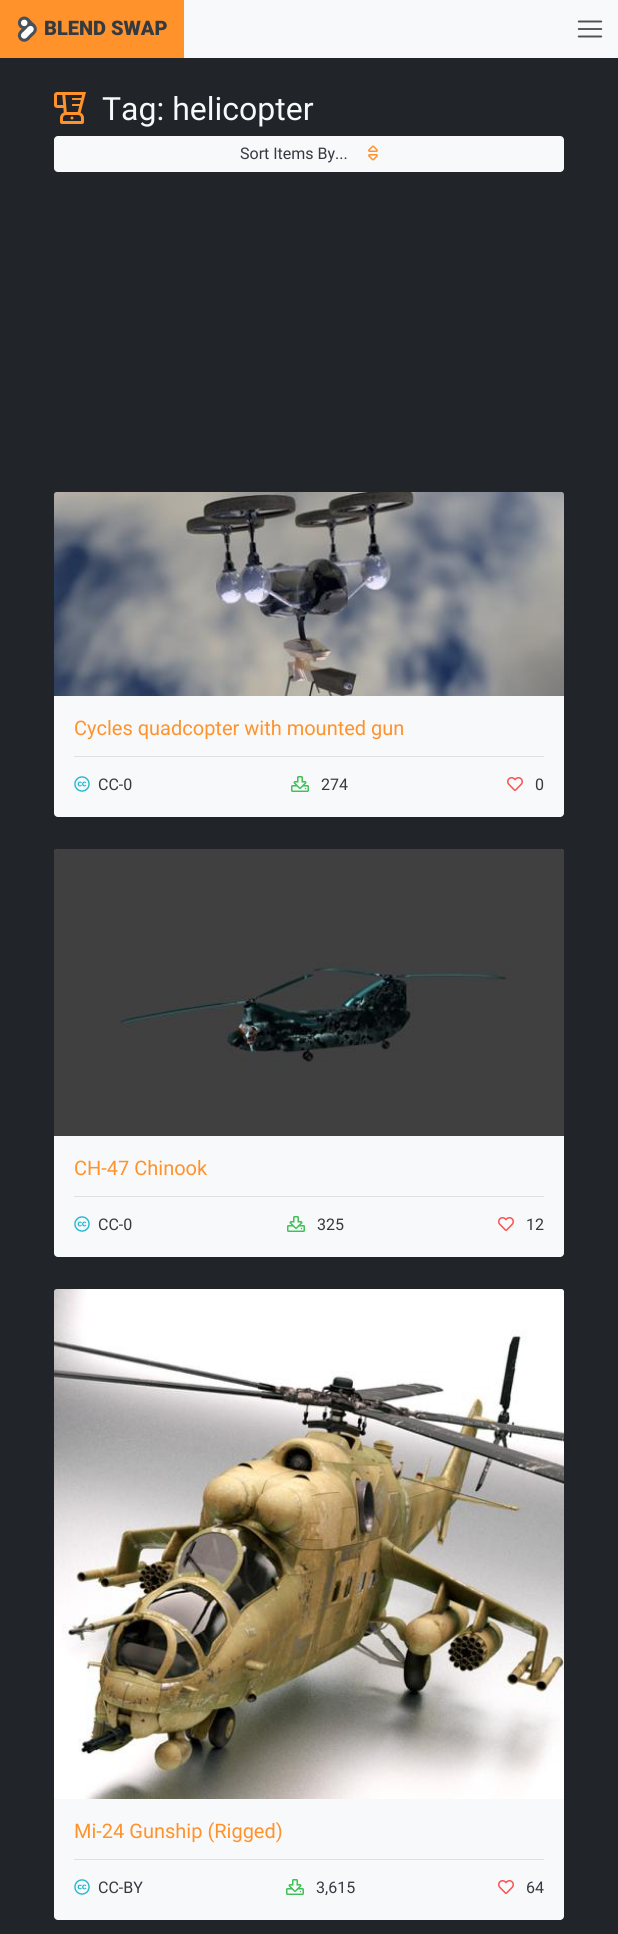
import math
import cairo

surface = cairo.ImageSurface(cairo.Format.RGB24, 618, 1934)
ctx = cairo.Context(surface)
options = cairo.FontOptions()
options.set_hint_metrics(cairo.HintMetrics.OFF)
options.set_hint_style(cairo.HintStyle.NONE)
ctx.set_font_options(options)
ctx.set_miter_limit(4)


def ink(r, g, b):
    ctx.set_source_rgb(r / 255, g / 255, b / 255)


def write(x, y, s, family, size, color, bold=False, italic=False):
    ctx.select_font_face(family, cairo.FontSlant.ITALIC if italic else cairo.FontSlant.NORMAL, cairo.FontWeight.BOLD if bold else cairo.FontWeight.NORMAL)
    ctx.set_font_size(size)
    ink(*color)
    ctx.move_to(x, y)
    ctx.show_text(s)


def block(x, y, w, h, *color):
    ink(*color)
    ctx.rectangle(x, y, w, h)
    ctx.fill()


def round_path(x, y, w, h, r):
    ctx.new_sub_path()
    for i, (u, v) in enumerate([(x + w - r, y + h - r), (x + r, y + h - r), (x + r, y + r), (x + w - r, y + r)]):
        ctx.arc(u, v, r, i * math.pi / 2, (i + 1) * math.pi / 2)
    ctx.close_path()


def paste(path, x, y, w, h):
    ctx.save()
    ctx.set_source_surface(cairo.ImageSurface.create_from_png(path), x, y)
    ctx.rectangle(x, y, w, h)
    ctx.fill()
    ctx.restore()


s1 = dict(family="Roboto Black", size=20, color=(52, 58, 64))
s2 = dict(family="Roboto", size=32, color=(248, 249, 250))
s3 = dict(family="Roboto", size=16, color=(52, 58, 64))
s4 = dict(family="Roboto", size=20, color=(255, 146, 43))

ink(33, 37, 41)
ctx.paint()
block(184, 0, 434, 58, 248, 249, 250)
block(0, 0, 184, 58, 255, 146, 43)
paste("pic1.png", 17, 16, 20, 26)
write(44, 35, "BLEND SWAP", **s1)
paste("pic2.png", 577, 20, 26, 18)
paste("pic3.png", 54, 92, 32, 32)
write(102, 120, "Tag: helicopter", **s2)
round_path(54, 136, 510, 36, 4)
ctx.fill()
write(240, 159, "Sort Items By...", **s3)
paste("pic4.png", 368, 145, 10, 16)
ink(248, 249, 250)
round_path(54, 492, 510, 325, 4)
ctx.fill()
paste("pic5.png", 54, 492, 510, 204)
write(74, 735, "Cycles quadcopter with mounted gun", **s4)
block(74, 756, 470, 1, 223, 224, 225)
paste("pic6.png", 74, 776, 16, 16)
write(98, 790, "CC-0", **s3)
paste("pic7.png", 291, 776, 18, 16)
write(321, 790, "274", **s3)
paste("pic8.png", 507, 777, 16, 14)
write(535, 790, "0", **s3)
ink(248, 249, 250)
round_path(54, 849, 510, 408, 4)
ctx.fill()
paste("pic9.png", 54, 849, 510, 287)
write(74, 1175, "CH-47 Chinook", **s4)
block(74, 1196, 470, 1, 223, 224, 225)
paste("pic6.png", 74, 1216, 16, 16)
write(98, 1230, "CC-0", **s3)
paste("pic7.png", 287, 1216, 18, 16)
write(317, 1230, "325", **s3)
paste("pic8.png", 498, 1217, 16, 14)
write(526, 1230, "12", **s3)
ink(248, 249, 250)
round_path(54, 1289, 510, 631, 4)
ctx.fill()
paste("pic10.png", 54, 1289, 510, 510)
write(74, 1838, "Mi-24 Gunship (Rigged)", **s4)
block(74, 1859, 470, 1, 223, 224, 225)
paste("pic6.png", 74, 1879, 16, 16)
write(98, 1893, "CC-BY", **s3)
paste("pic7.png", 286, 1879, 18, 16)
write(316, 1893, "3,615", **s3)
paste("pic8.png", 498, 1880, 16, 14)
write(526, 1893, "64", **s3)
surface.write_to_png("screenshot.png")
